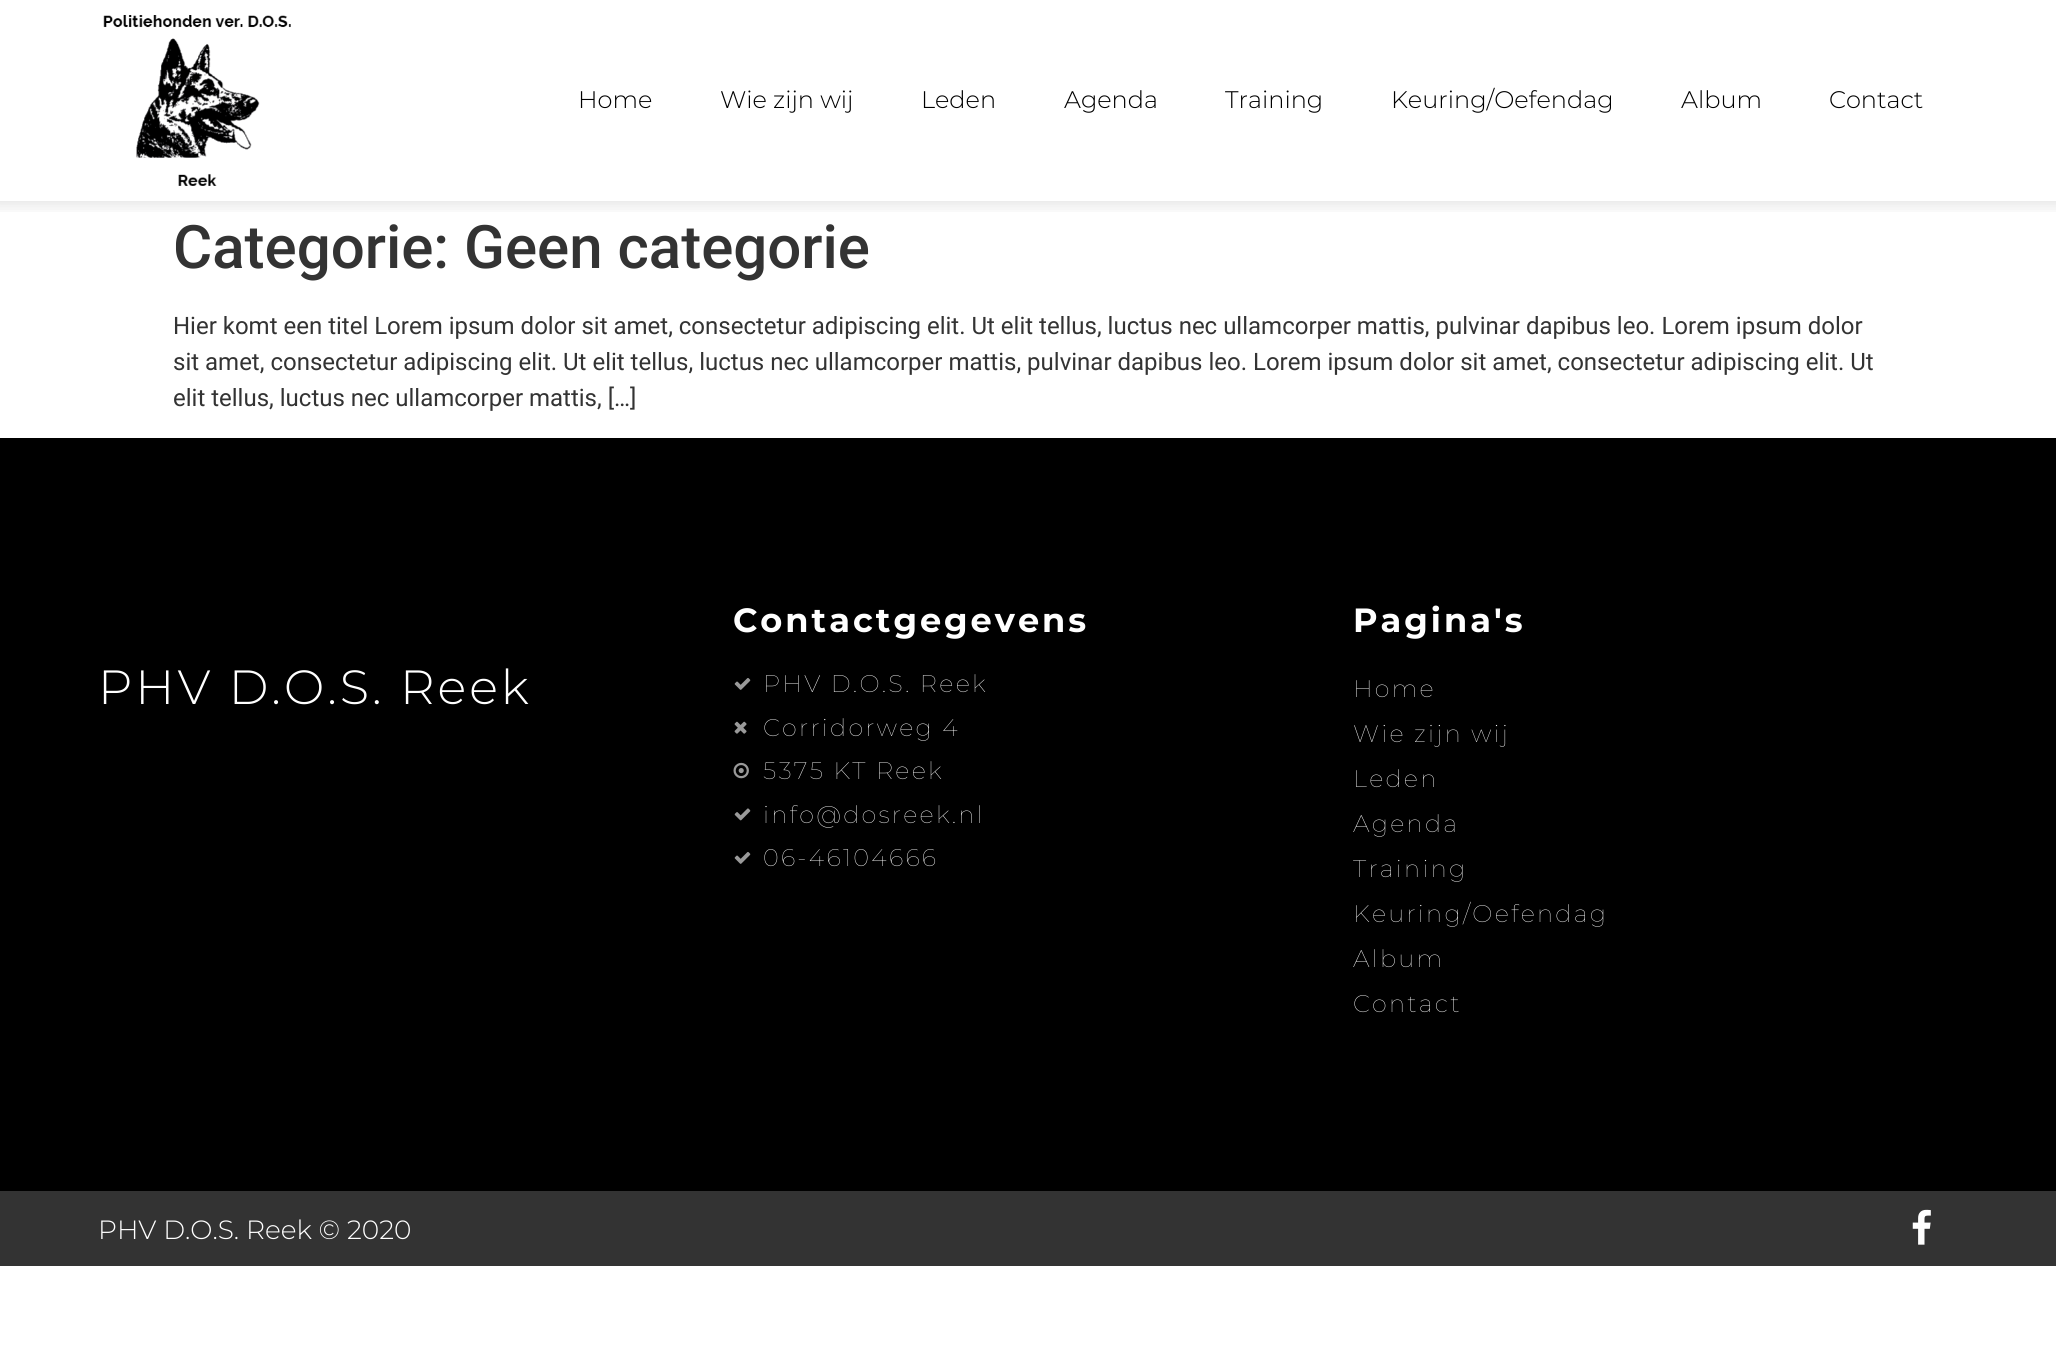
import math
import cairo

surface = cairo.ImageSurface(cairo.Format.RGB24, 2056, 1346)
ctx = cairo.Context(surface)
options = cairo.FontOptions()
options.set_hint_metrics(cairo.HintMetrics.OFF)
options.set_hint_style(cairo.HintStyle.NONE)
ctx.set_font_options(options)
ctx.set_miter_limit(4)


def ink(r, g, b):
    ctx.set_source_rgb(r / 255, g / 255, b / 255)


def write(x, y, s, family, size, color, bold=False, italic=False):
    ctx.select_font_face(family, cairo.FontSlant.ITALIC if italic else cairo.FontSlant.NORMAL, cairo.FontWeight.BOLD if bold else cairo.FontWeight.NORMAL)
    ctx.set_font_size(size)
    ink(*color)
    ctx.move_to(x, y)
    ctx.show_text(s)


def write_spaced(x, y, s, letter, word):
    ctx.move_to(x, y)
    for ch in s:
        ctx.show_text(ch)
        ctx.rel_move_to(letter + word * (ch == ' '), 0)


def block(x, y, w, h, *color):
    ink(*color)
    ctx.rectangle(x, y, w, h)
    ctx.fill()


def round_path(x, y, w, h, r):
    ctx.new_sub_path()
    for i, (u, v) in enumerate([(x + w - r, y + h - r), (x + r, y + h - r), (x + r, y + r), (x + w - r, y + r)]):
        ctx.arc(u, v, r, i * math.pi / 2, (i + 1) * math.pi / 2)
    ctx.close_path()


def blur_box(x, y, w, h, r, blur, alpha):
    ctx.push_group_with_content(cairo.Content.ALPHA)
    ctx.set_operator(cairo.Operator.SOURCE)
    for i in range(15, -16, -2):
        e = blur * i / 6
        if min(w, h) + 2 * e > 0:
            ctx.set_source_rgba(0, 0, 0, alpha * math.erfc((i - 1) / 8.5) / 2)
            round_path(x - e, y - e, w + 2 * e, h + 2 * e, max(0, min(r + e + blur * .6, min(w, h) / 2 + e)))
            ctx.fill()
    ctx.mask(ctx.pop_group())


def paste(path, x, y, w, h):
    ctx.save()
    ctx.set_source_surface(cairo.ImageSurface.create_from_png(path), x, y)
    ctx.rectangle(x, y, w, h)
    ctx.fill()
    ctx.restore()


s1 = dict(family="Montserrat Light", size=24, color=(0, 0, 0))
s2 = dict(family="Roboto Medium", size=60, color=(51, 51, 51))
s3 = dict(family="Roboto", size=24, color=(51, 51, 51))
s4 = dict(family="Montserrat Light", size=26.4, color=(255, 255, 255))

ink(255, 255, 255)
ctx.paint()
ctx.save()
ctx.rectangle(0, 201, 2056, 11)
ctx.clip()
ink(0, 0, 0)
blur_box(-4, -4, 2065, 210, 0, 7.5, 0.1)
ctx.restore()
paste("pic1.png", 103, 15, 188, 171)
write(578, 108, "Home", **s1)
write(720, 108, "Wie zijn wij", **s1)
write(921, 108, "Leden", **s1)
write(1064, 108, "Agenda", **s1)
write(1225, 108, "Training", **s1)
write(1391, 108, "Keuring/Oefendag", **s1)
write(1681, 108, "Album", **s1)
write(1829, 108, "Contact", **s1)
write(173, 268, "Categorie: Geen categorie", **s2)
write(173, 334, "Hier komt een titel Lorem ipsum dolor sit amet, consectetur adipiscing elit. Ut elit tellus, luctus nec ullamcorper mattis, pulvinar dapibus leo. Lorem ipsum dolor", **s3)
write(173, 370, "sit amet, consectetur adipiscing elit. Ut elit tellus, luctus nec ullamcorper mattis, pulvinar dapibus leo. Lorem ipsum dolor sit amet, consectetur adipiscing elit. Ut", **s3)
write(173, 406, "elit tellus, luctus nec ullamcorper mattis, […]", **s3)
block(0, 438, 2056, 753, 0, 0, 0)
ctx.select_font_face("Montserrat Light")
ctx.set_font_size(48)
ink(255, 255, 255)
write_spaced(98, 704, "PHV D.O.S. Reek", 3, 0)
ctx.select_font_face("Montserrat", cairo.FontSlant.NORMAL, cairo.FontWeight.BOLD)
ctx.set_font_size(33.6)
write_spaced(733, 632, "Contactgegevens", 3, 0)
paste("pic2.png", 734, 678, 17, 12)
ctx.select_font_face("Montserrat Thin")
ctx.set_font_size(24)
write_spaced(763, 692, "PHV D.O.S. Reek", 2.25, 0)
paste("pic3.png", 734, 721, 13, 13)
write_spaced(763, 736, "Corridorweg 4", 2.25, 0)
paste("pic4.png", 733, 762, 16, 17)
write_spaced(763, 779, "5375 KT Reek", 2.25, 0)
paste("pic5.png", 734, 808, 17, 13)
write_spaced(763, 823, "info@dosreek.nl", 2.25, 0)
paste("pic2.png", 734, 852, 17, 12)
write_spaced(763, 866, "06-46104666", 2.25, 0)
ctx.select_font_face("Montserrat", cairo.FontSlant.NORMAL, cairo.FontWeight.BOLD)
ctx.set_font_size(33.6)
write_spaced(1353, 632, "Pagina's", 3, 0)
ctx.select_font_face("Montserrat Thin")
ctx.set_font_size(24)
write_spaced(1353, 697, "Home", 2.25, 0)
write_spaced(1353, 742, "Wie zijn wij", 2.25, 0)
write_spaced(1353, 787, "Leden", 2.25, 0)
write_spaced(1353, 832, "Agenda", 2.25, 0)
write_spaced(1353, 877, "Training", 2.25, 0)
write_spaced(1353, 922, "Keuring/Oefendag", 2.25, 0)
write_spaced(1353, 967, "Album", 2.25, 0)
write_spaced(1353, 1012, "Contact", 2.25, 0)
block(0, 1191, 2056, 75, 51, 51, 51)
write(98, 1239, "PHV D.O.S. Reek © 2020", **s4)
paste("pic6.png", 1912, 1209, 19, 36)
surface.write_to_png("screenshot.png")
